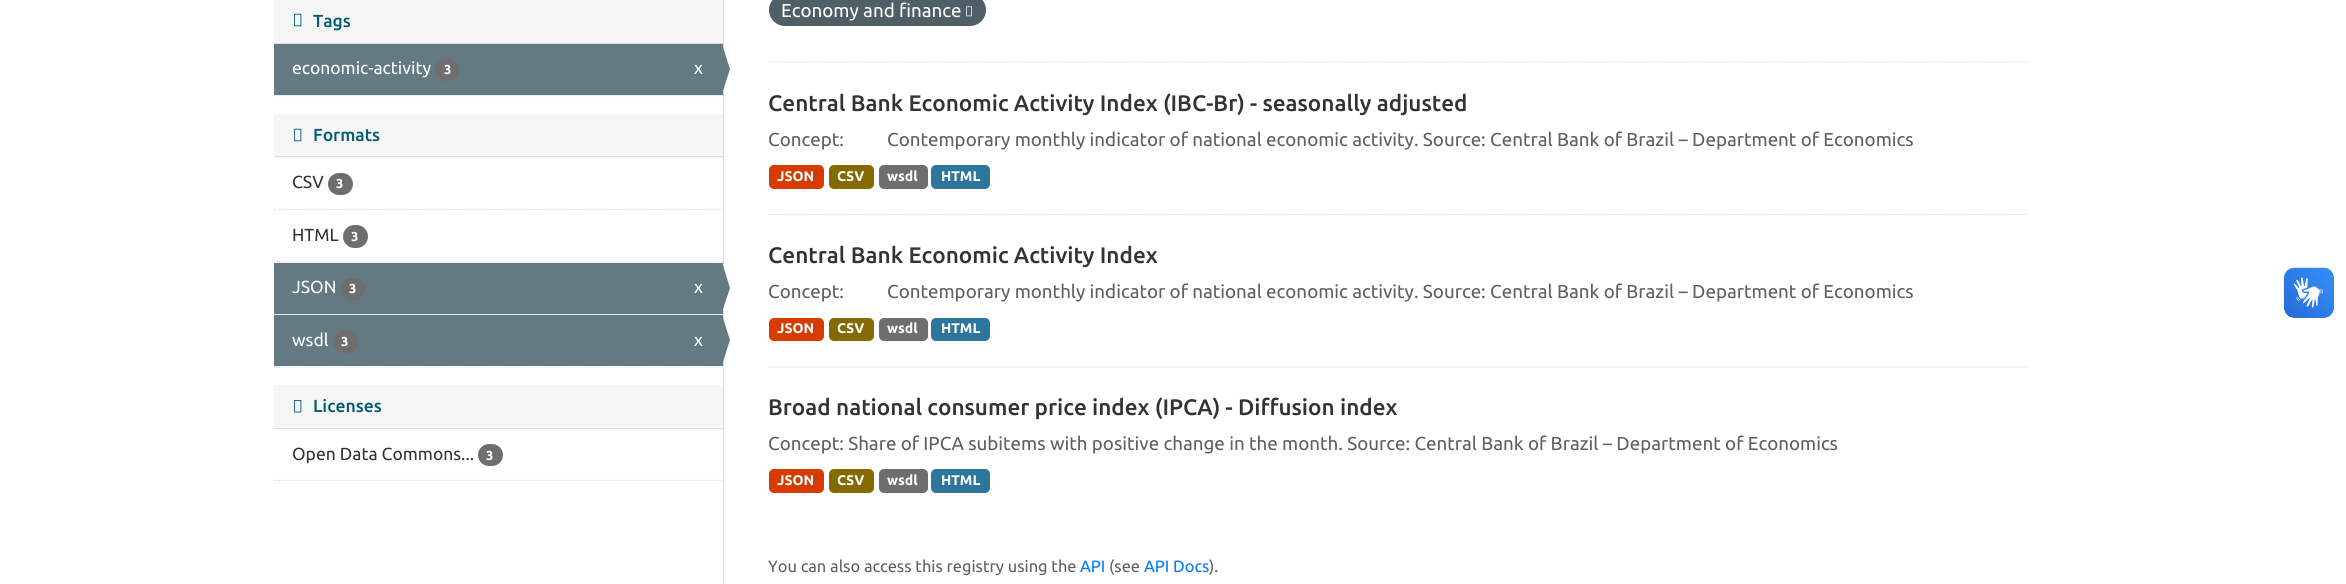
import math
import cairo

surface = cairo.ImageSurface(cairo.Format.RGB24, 2346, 584)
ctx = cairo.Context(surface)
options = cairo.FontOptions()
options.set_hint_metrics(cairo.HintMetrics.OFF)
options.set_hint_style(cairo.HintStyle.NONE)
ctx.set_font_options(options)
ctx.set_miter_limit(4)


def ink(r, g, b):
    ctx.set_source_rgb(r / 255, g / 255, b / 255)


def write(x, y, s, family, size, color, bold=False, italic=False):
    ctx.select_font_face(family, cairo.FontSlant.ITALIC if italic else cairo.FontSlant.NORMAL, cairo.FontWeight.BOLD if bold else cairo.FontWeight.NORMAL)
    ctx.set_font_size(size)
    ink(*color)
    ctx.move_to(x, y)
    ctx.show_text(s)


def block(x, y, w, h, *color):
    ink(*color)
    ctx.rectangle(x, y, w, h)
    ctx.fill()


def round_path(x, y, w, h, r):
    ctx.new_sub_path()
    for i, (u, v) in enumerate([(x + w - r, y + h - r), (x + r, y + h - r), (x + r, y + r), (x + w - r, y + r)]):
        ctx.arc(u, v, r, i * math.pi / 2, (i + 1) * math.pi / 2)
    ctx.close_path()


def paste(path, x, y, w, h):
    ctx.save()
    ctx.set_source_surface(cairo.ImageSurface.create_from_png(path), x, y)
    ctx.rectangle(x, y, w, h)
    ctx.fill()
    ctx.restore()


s1 = dict(family="Ubuntu Medium", size=17.5, color=(2, 92, 117))
s2 = dict(family="Ubuntu", size=17.5, color=(255, 255, 255))
s3 = dict(family="Ubuntu", size=13, color=(255, 255, 255), bold=True)
s4 = dict(family="Ubuntu", size=17.5, color=(51, 51, 51))
s5 = dict(family="Ubuntu", size=18.75, color=(255, 255, 255))
s6 = dict(family="Ubuntu Medium", size=22.5, color=(51, 51, 51))
s7 = dict(family="Ubuntu", size=18.75, color=(96, 96, 96))
s8 = dict(family="Ubuntu", size=14, color=(255, 255, 255), bold=True)
s9 = dict(family="Ubuntu", size=16.4, color=(96, 96, 96))
s10 = dict(family="Ubuntu", size=16.4, color=(0, 123, 255))

ink(255, 255, 255)
ctx.paint()
block(274, 0, 449, 43, 246, 246, 246)
block(274, 43, 449, 1, 221, 221, 221)
paste("pic1.png", 294, 13, 8, 14)
write(313, 27, "Tags", **s1)
ctx.new_path()
ctx.move_to(274, 95.5)
ctx.line_to(722.5, 95.5)
ink(221, 221, 221)
ctx.set_line_width(1.2)
ctx.set_dash([1.25, 1.25])
ctx.stroke()
block(274, 44, 449, 51, 100, 122, 130)
write(292, 74, "economic-activity", **s2)
ink(110, 110, 110)
round_path(435, 59, 25, 22, 11)
ctx.fill()
write(444, 74, "3", **s3)
write(694, 74, "x", **s2)
block(723, 0, 1, 584, 221, 221, 221)
ink(100, 122, 130)
ctx.new_path()
ctx.move_to(722, 94)
ctx.line_to(722, 44)
ctx.line_to(730, 69)
ctx.close_path()
ctx.fill()
block(274, 114, 449, 44, 246, 246, 246)
block(274, 156, 449, 1, 221, 221, 221)
paste("pic1.png", 294, 128, 8, 14)
write(313, 141, "Formats", **s1)
ctx.new_path()
ctx.move_to(274, 209.5)
ctx.line_to(722.5, 209.5)
ink(221, 221, 221)
ctx.stroke()
write(292, 188, "CSV", **s4)
ink(110, 110, 110)
round_path(328, 173, 25, 22, 11)
ctx.fill()
write(336, 188, "3", **s3)
ctx.new_path()
ctx.move_to(274, 262)
ctx.line_to(722.5, 262)
ink(221, 221, 221)
ctx.stroke()
write(292, 241, "HTML", **s4)
ink(110, 110, 110)
round_path(343, 225, 25, 23, 11.5)
ctx.fill()
write(351, 241, "3", **s3)
block(275, 314, 448, 1, 246, 246, 246)
ctx.new_path()
ctx.move_to(274, 314.5)
ctx.line_to(722.5, 314.5)
ink(221, 221, 221)
ctx.stroke()
block(274, 263, 449, 51, 100, 122, 130)
write(292, 293, "JSON", **s2)
ink(110, 110, 110)
round_path(340, 278, 25, 22, 11)
ctx.fill()
write(349, 293, "3", **s3)
write(694, 293, "x", **s2)
ink(100, 122, 130)
ctx.new_path()
ctx.move_to(722, 312)
ctx.line_to(722, 262)
ctx.line_to(730, 288)
ctx.close_path()
ctx.fill()
block(274, 315, 449, 51, 100, 122, 130)
write(292, 346, "wsdl", **s2)
ink(110, 110, 110)
round_path(333, 330, 25, 23, 11.5)
ctx.fill()
write(341, 346, "3", **s3)
write(694, 346, "x", **s2)
ink(100, 122, 130)
ctx.new_path()
ctx.move_to(722, 365)
ctx.line_to(722, 315)
ctx.line_to(730, 340)
ctx.close_path()
ctx.fill()
ctx.new_path()
ctx.move_to(274, 367)
ctx.line_to(722.5, 367)
ink(221, 221, 221)
ctx.stroke()
block(274, 385, 449, 43, 246, 246, 246)
block(274, 428, 449, 1, 221, 221, 221)
paste("pic2.png", 294, 400, 8, 13)
write(313, 412, "Licenses", **s1)
write(292, 460, "Open Data Commons...", **s4)
ink(110, 110, 110)
round_path(478, 444, 25, 22, 11)
ctx.fill()
write(486, 460, "3", **s3)
ctx.new_path()
ctx.move_to(274, 480.5)
ctx.line_to(722.5, 480.5)
ink(221, 221, 221)
ctx.stroke()
ctx.new_path()
ctx.move_to(769, 62)
ctx.line_to(2029, 62)
ctx.stroke()
ink(78, 95, 101)
round_path(769, -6, 217, 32, 16)
ctx.fill()
write(781, 17, "Economy and finance", **s5)
paste("pic3.png", 966, 6, 6, 11)
ctx.new_path()
ctx.move_to(769, 214.5)
ctx.line_to(2029, 214.5)
ink(221, 221, 221)
ctx.stroke()
write(768, 111, "Central Bank Economic Activity Index (IBC-Br) - seasonally adjusted", **s6)
write(768, 146, "Concept:", **s7)
write(887, 146, "Contemporary monthly indicator of national economic activity. Source: Central Bank of Brazil – Department of Economics", **s7)
ink(214, 59, 0)
round_path(769, 165, 55, 24, 5)
ctx.fill()
write(777, 181, "JSON", **s8)
ink(133, 106, 0)
round_path(829, 165, 45, 24, 5)
ctx.fill()
write(837, 181, "CSV", **s8)
ink(110, 110, 110)
round_path(879, 165, 49, 24, 5)
ctx.fill()
write(887, 181, "wsdl", **s8)
ink(46, 117, 158)
round_path(931, 165, 59, 24, 5)
ctx.fill()
write(941, 181, "HTML", **s8)
ctx.new_path()
ctx.move_to(769, 367)
ctx.line_to(2029, 367)
ink(221, 221, 221)
ctx.stroke()
write(768, 263, "Central Bank Economic Activity Index", **s6)
write(768, 298, "Concept:", **s7)
write(887, 298, "Contemporary monthly indicator of national economic activity. Source: Central Bank of Brazil – Department of Economics", **s7)
ink(214, 59, 0)
round_path(769, 318, 55, 23, 5)
ctx.fill()
write(777, 333, "JSON", **s8)
ink(133, 106, 0)
round_path(829, 318, 45, 23, 5)
ctx.fill()
write(837, 333, "CSV", **s8)
ink(110, 110, 110)
round_path(879, 318, 49, 23, 5)
ctx.fill()
write(887, 333, "wsdl", **s8)
ink(46, 117, 158)
round_path(931, 318, 59, 23, 5)
ctx.fill()
write(941, 333, "HTML", **s8)
write(768, 415, "Broad national consumer price index (IPCA) - Diffusion index", **s6)
write(768, 450, "Concept: Share of IPCA subitems with positive change in the month. Source: Central Bank of Brazil – Department of Economics", **s7)
ink(214, 59, 0)
round_path(769, 469, 55, 24, 5)
ctx.fill()
write(777, 485, "JSON", **s8)
ink(133, 106, 0)
round_path(829, 469, 45, 24, 5)
ctx.fill()
write(837, 485, "CSV", **s8)
ink(110, 110, 110)
round_path(879, 469, 49, 24, 5)
ctx.fill()
write(887, 485, "wsdl", **s8)
ink(46, 117, 158)
round_path(931, 469, 59, 24, 5)
ctx.fill()
write(941, 485, "HTML", **s8)
write(768, 572, "You can also access this registry using the", **s9)
write(1080, 572, "API", **s10)
write(1109, 572, "(see", **s9)
write(1144, 572, "API Docs", **s10)
write(1209, 572, ").", **s9)
paste("pic4.png", 2283, 267, 51, 51)
paste("pic5.png", 2284, 268, 50, 50)
surface.write_to_png("screenshot.png")
